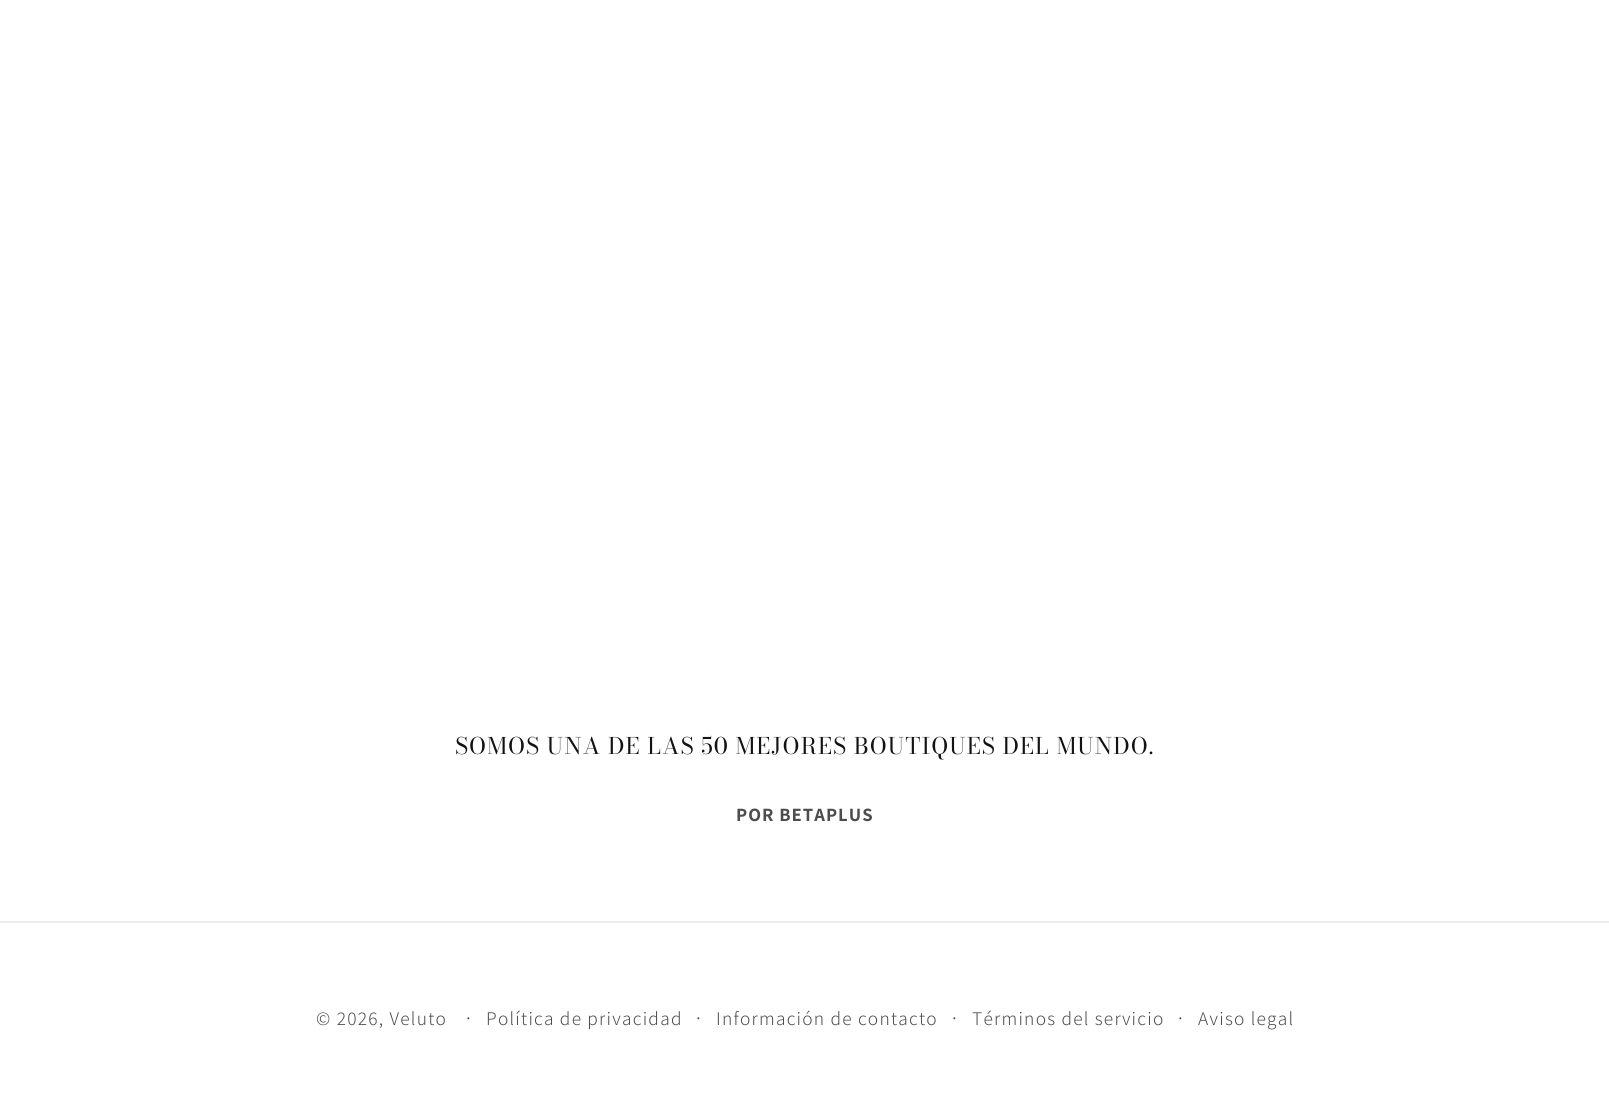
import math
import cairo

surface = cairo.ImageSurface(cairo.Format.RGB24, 1609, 1098)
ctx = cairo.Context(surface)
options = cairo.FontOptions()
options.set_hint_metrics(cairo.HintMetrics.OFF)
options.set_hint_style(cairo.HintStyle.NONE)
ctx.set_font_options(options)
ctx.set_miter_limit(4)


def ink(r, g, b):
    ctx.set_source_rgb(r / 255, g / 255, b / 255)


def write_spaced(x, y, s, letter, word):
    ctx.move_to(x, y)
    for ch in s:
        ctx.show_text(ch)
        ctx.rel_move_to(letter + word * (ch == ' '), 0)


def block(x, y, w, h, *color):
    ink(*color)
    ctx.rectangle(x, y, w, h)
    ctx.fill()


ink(255, 255, 255)
ctx.paint()
ctx.select_font_face("Bodoni Moda")
ctx.set_font_size(22.75)
ink(18, 18, 18)
write_spaced(455, 754, "SOMOS UNA DE LAS 50 MEJORES BOUTIQUES DEL MUNDO.", 1.05, 0)
ctx.select_font_face("Assistant", cairo.FontSlant.NORMAL, cairo.FontWeight.BOLD)
ctx.set_font_size(18.75)
ink(77, 77, 77)
write_spaced(736, 821, "POR BETAPLUS", 1.05, 0)
block(0, 921, 1609, 2, 236, 236, 236)
ctx.select_font_face("Assistant Light")
ctx.set_font_size(19.25)
ink(77, 77, 77)
write_spaced(316, 1025, "© 2026, Veluto", 1.25, 0)
ctx.set_font_size(21)
write_spaced(466, 1025, "·", 1.25, 0)
ctx.set_font_size(19.25)
write_spaced(486, 1025, "Política de privacidad", 1.25, 0)
ctx.set_font_size(21)
write_spaced(696, 1025, "·", 1.25, 0)
ctx.set_font_size(19.25)
write_spaced(716, 1025, "Información de contacto", 1.25, 0)
ctx.set_font_size(21)
write_spaced(952, 1025, "·", 1.25, 0)
ctx.set_font_size(19.25)
write_spaced(972, 1025, "Términos del servicio", 1.25, 0)
ctx.set_font_size(21)
write_spaced(1178, 1025, "·", 1.25, 0)
ctx.set_font_size(19.25)
write_spaced(1198, 1025, "Aviso legal", 1.25, 0)
surface.write_to_png("screenshot.png")
